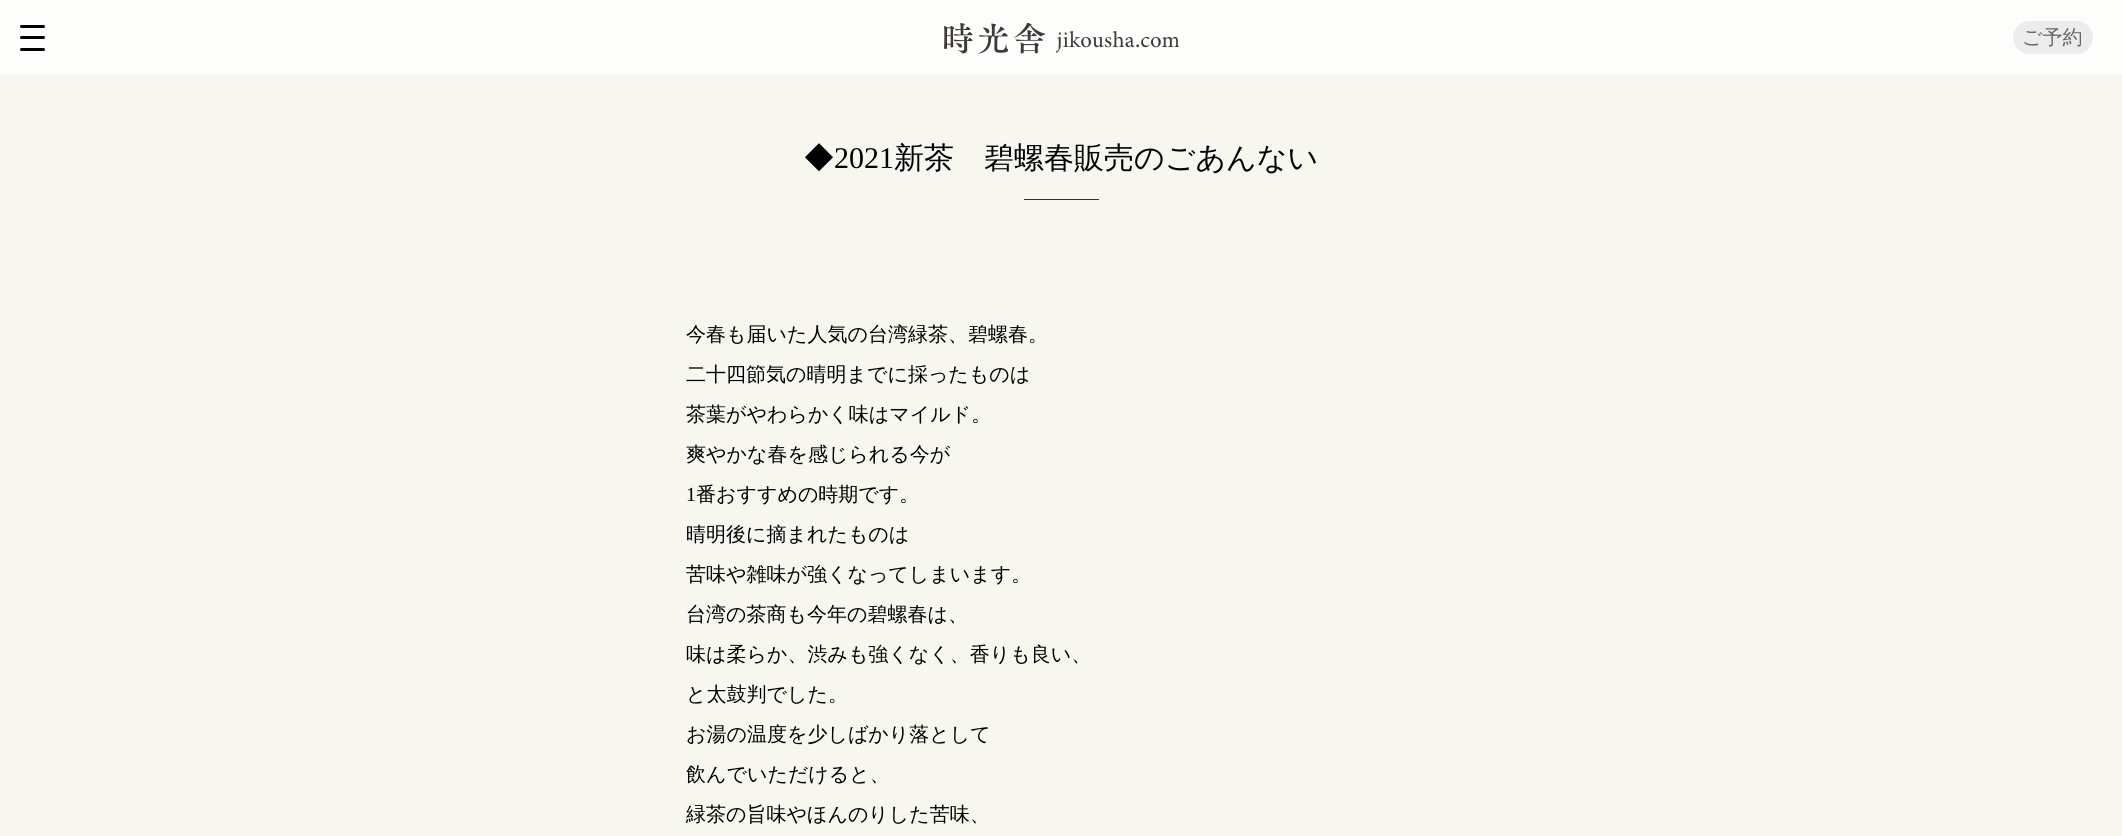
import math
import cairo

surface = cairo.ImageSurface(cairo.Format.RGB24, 2122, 836)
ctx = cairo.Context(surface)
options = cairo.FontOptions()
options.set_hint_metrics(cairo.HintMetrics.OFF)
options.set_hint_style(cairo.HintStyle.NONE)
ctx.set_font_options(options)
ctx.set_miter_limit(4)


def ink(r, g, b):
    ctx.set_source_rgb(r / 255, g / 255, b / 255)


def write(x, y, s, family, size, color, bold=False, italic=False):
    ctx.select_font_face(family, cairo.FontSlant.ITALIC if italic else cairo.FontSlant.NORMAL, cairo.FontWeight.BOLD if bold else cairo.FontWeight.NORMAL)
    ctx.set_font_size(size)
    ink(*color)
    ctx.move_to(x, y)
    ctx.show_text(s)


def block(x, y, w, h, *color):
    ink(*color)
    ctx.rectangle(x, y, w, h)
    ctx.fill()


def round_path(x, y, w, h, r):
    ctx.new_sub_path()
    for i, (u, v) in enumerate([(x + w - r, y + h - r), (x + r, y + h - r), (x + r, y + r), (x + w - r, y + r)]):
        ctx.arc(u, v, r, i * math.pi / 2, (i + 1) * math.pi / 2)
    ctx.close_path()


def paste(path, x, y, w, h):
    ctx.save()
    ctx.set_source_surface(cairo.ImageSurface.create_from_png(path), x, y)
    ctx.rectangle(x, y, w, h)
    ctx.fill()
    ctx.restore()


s1 = dict(family="WenQuanYi Zen Hei Medium", size=20, color=(102, 102, 102))
s2 = dict(family="WenQuanYi Zen Hei Medium", size=30, color=(0, 0, 0))
s3 = dict(family="Liberation Serif", size=30, color=(0, 0, 0))
s4 = dict(family="WenQuanYi Zen Hei Medium", size=20, color=(0, 0, 0))
s5 = dict(family="Liberation Serif", size=20, color=(0, 0, 0))

ink(247, 246, 239)
ctx.paint()
block(0, 0, 2122, 75, 253, 253, 252)
ink(0, 0, 0)
round_path(20, 25, 25, 3, 1.5)
ctx.fill()
round_path(20, 36, 25, 3, 1.5)
ctx.fill()
round_path(20, 48, 25, 3, 1.5)
ctx.fill()
paste("pic1.png", 944, 23, 235, 31)
ink(237, 236, 236)
round_path(2013, 21, 80, 33, 16.5)
ctx.fill()
write(2022, 44, "ご予約", **s1)
write(804, 168, "◆", **s2)
write(834, 168, "2021", **s3)
write(894, 168, "新茶　碧螺春販売のごあんない", **s2)
block(1024, 199, 75, 1, 51, 51, 51)
write(686, 341, "今春も届いた人気の台湾緑茶、碧螺春。", **s4)
write(686, 381, "二十四節気の晴明までに採ったものは", **s4)
write(686, 421, "茶葉がやわらかく味はマイルド。", **s4)
write(686, 461, "爽やかな春を感じられる今が", **s4)
write(686, 501, "1", **s5)
write(696, 501, "番おすすめの時期です。", **s4)
write(686, 541, "晴明後に摘まれたものは", **s4)
write(686, 581, "苦味や雑味が強くなってしまいます。", **s4)
write(686, 621, "台湾の茶商も今年の碧螺春は、", **s4)
write(686, 661, "味は柔らか、渋みも強くなく、香りも良い、", **s4)
write(686, 701, "と太鼓判でした。", **s4)
write(686, 741, "お湯の温度を少しばかり落として", **s4)
write(686, 781, "飲んでいただけると、", **s4)
write(686, 821, "緑茶の旨味やほんのりした苦味、", **s4)
surface.write_to_png("screenshot.png")
